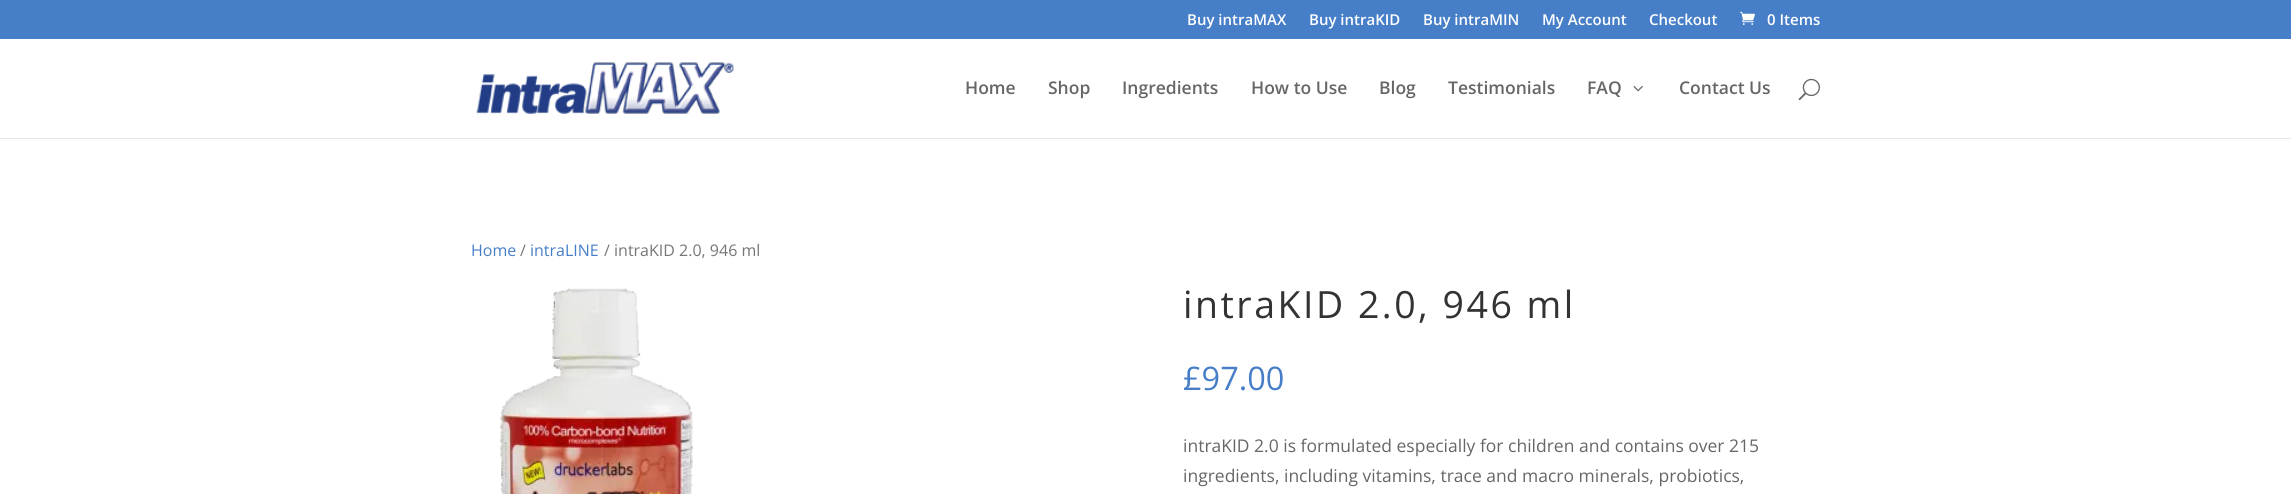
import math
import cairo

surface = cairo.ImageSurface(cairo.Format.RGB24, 2291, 494)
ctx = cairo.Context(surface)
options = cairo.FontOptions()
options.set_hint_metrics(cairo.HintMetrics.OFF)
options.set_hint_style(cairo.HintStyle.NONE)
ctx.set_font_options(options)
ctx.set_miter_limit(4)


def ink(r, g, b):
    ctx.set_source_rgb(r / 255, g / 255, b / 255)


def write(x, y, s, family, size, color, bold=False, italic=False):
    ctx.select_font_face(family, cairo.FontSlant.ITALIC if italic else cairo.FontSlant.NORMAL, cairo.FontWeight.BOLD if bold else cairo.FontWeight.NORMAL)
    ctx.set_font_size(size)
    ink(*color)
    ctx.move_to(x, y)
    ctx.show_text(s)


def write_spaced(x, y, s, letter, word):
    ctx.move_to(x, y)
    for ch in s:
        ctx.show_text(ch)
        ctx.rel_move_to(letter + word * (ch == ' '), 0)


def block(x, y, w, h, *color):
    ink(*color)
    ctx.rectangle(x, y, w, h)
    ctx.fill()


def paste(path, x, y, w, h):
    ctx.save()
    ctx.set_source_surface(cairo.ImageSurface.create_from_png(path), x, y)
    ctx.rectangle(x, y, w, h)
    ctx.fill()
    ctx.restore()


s1 = dict(family="Open Sans SemiBold", size=15, color=(255, 255, 255))
s2 = dict(family="Open Sans SemiBold", size=17.5, color=(102, 102, 102))
s3 = dict(family="Open Sans", size=16, color=(70, 126, 200))
s4 = dict(family="Open Sans", size=16, color=(118, 118, 118))
s5 = dict(family="Open Sans", size=32.5, color=(70, 126, 200))
s6 = dict(family="Open Sans", size=17.5, color=(102, 102, 102))

ink(255, 255, 255)
ctx.paint()
block(0, 0, 2291, 39, 70, 126, 200)
write(1187, 25, "Buy intraMAX", **s1)
write(1309, 25, "Buy intraKID", **s1)
write(1423, 25, "Buy intraMIN", **s1)
write(1542, 25, "My Account", **s1)
write(1649, 25, "Checkout", **s1)
paste("pic1.png", 1740, 11, 15, 14)
write(1767, 25, "0 Items", **s1)
block(0, 138, 2291, 1, 230, 230, 230)
paste("pic2.png", 476, 62, 258, 52)
write(965, 94, "Home", **s2)
write(1048, 94, "Shop", **s2)
write(1122, 94, "Ingredients", **s2)
write(1251, 94, "How to Use", **s2)
write(1379, 94, "Blog", **s2)
write(1448, 94, "Testimonials", **s2)
write(1587, 94, "FAQ", **s2)
paste("pic3.png", 1633, 86, 10, 6)
write(1679, 94, "Contact Us", **s2)
paste("pic4.png", 1798, 78, 22, 23)
write(471, 256, "Home", **s3)
write(520, 256, "/", **s4)
write(530, 256, "intraLINE", **s3)
write(604, 256, "/ intraKID 2.0, 946 ml", **s4)
paste("pic5.png", 500, 288, 193, 206)
ctx.set_font_size(37.5)
ink(51, 51, 51)
write_spaced(1183, 318, "intraKID 2.0, 946 ml", 2.5, 0)
write(1183, 390, "£97.00", **s5)
write(1183, 452, "intraKID 2.0 is formulated especially for children and contains over 215", **s6)
write(1183, 482, "ingredients, including vitamins, trace and macro minerals, probiotics,", **s6)
surface.write_to_png("screenshot.png")
